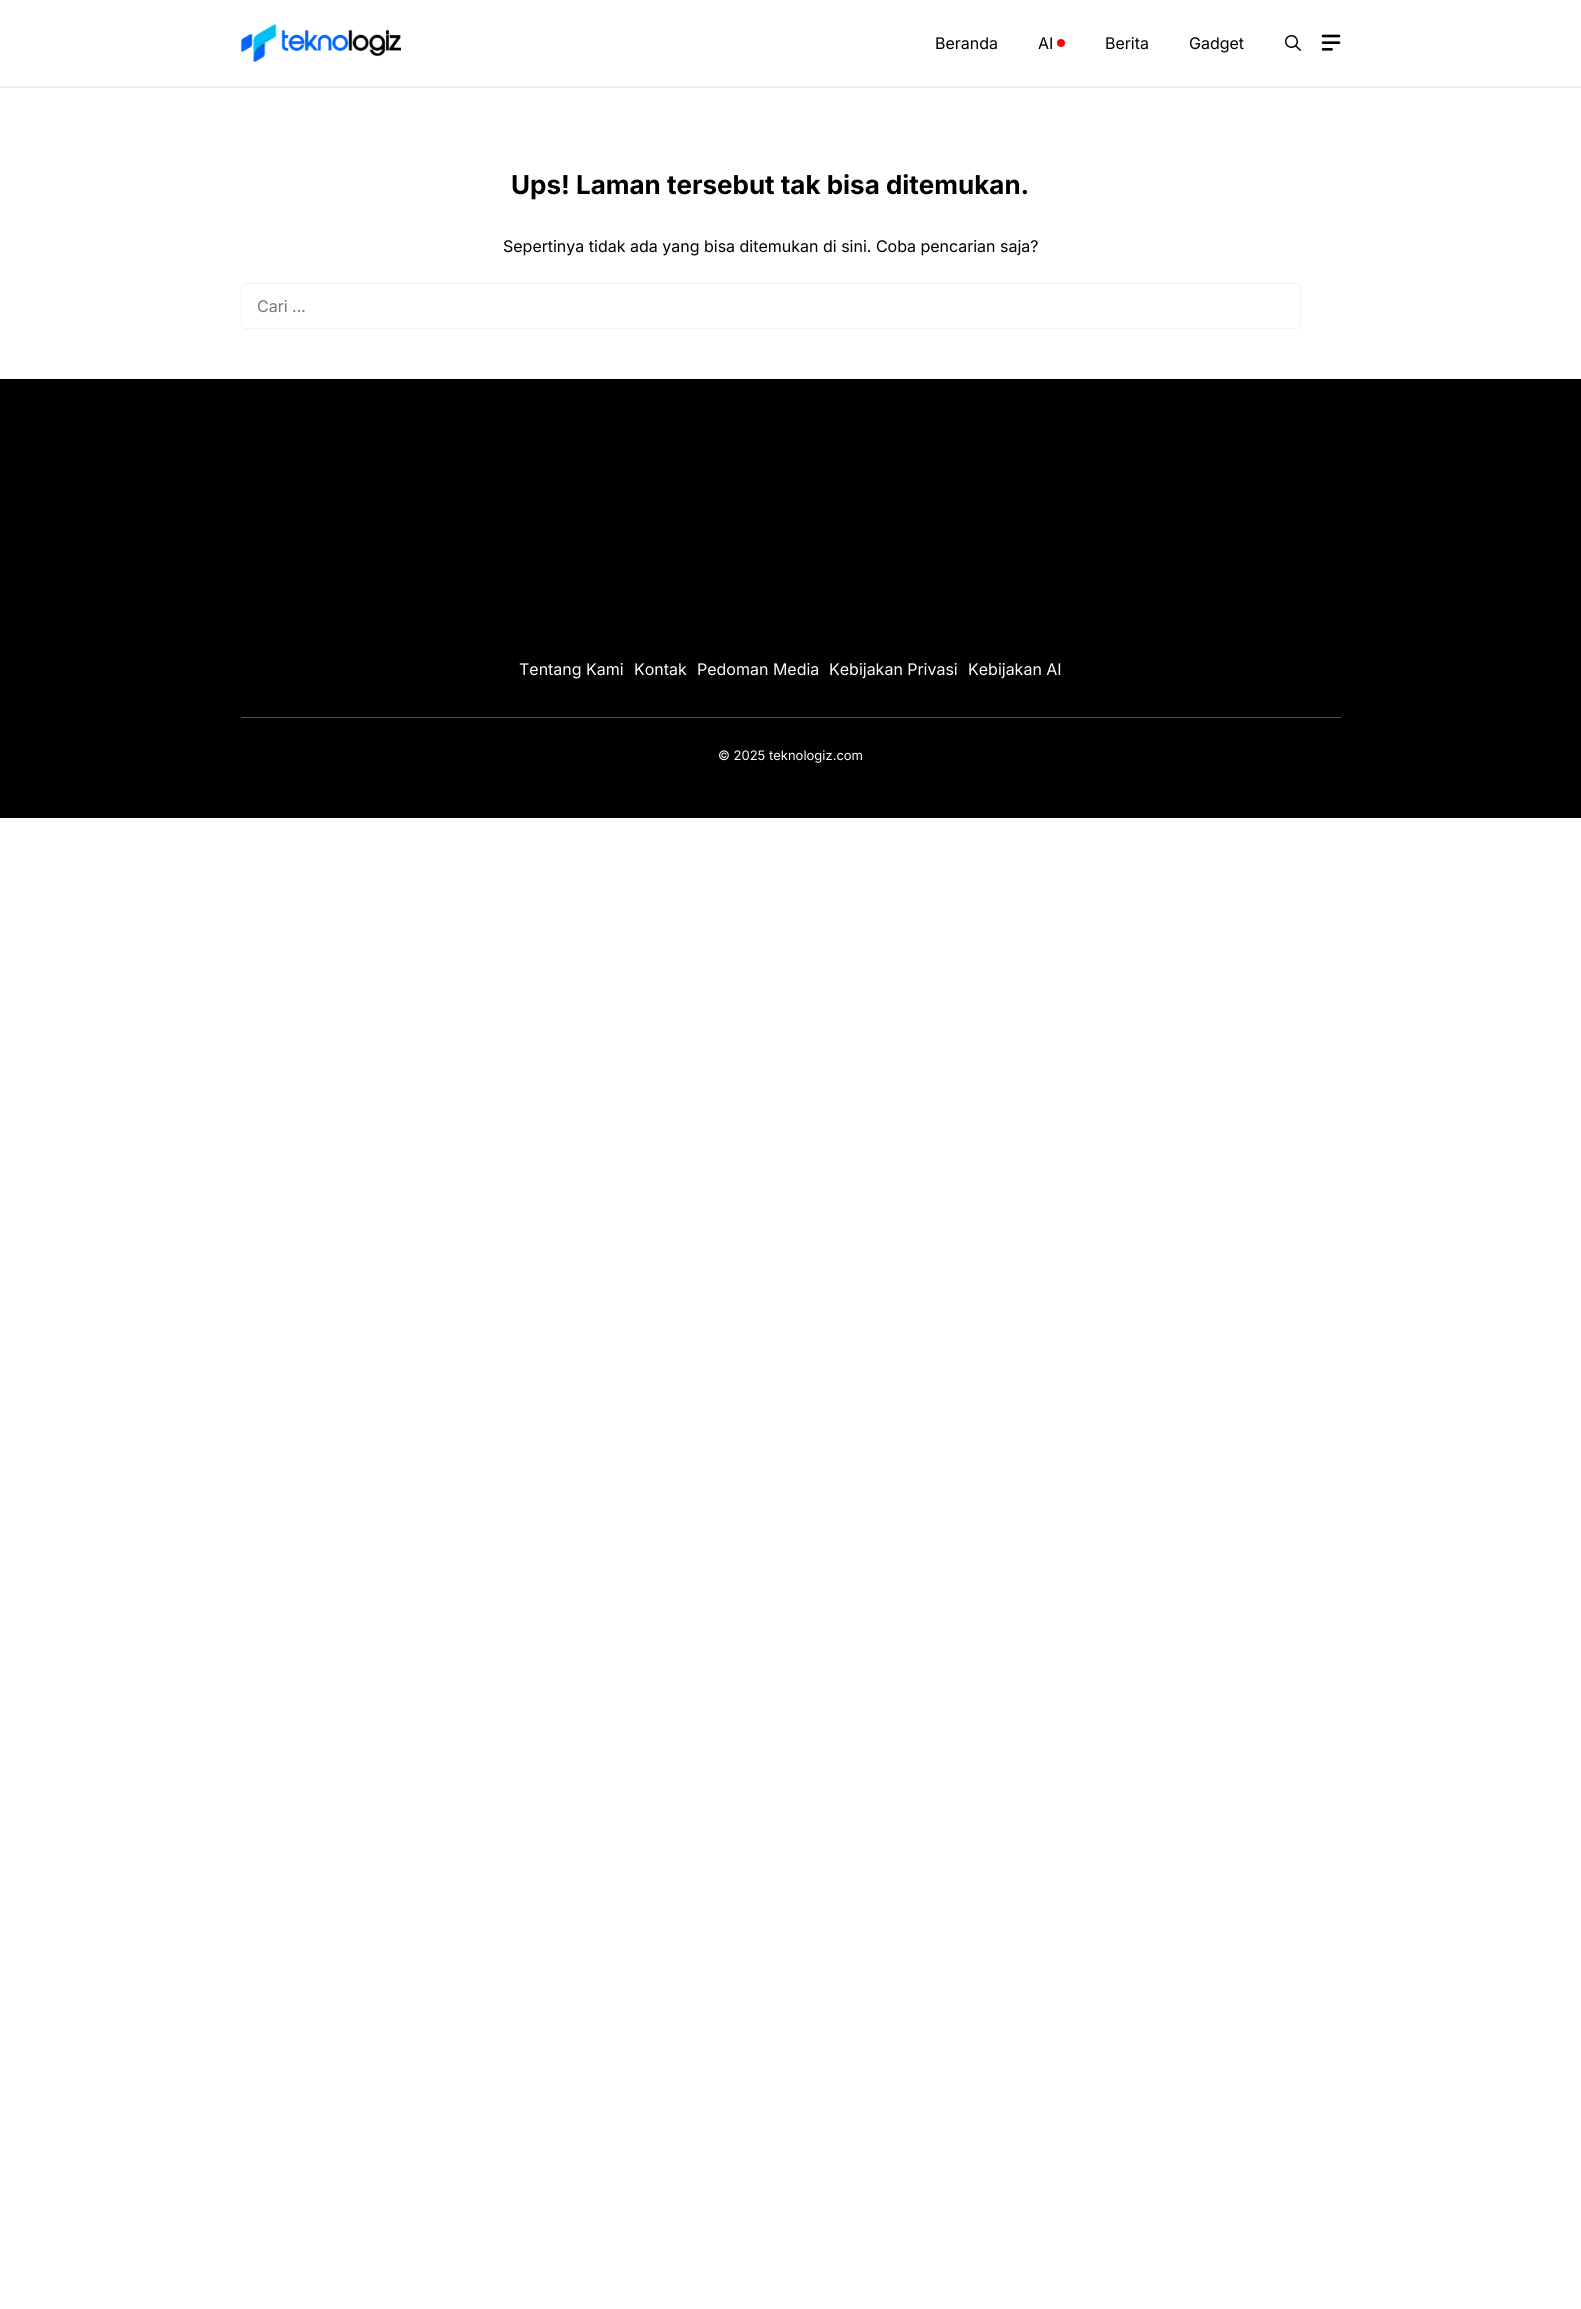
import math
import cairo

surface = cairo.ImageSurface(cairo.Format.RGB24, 1581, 2309)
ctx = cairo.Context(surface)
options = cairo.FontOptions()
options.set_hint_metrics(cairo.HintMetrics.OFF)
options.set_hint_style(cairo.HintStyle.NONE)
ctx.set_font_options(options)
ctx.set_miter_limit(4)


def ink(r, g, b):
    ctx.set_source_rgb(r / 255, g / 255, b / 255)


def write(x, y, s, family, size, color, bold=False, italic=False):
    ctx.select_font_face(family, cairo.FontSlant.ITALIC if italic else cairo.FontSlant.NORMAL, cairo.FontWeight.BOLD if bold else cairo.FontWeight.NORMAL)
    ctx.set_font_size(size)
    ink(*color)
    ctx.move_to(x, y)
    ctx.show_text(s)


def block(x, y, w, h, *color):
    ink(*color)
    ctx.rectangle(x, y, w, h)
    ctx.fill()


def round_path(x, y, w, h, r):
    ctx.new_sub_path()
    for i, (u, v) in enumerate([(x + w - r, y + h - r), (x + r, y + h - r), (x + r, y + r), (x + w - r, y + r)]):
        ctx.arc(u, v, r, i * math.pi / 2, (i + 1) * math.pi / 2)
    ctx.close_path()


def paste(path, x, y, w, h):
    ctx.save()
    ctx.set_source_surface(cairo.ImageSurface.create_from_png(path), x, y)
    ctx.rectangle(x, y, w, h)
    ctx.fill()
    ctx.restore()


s1 = dict(family="Inter", size=16, color=(0, 0, 0))
s2 = dict(family="Inter", size=26, color=(0, 0, 0), bold=True)
s3 = dict(family="Inter", size=16, color=(117, 117, 117))
s4 = dict(family="Inter", size=16, color=(255, 255, 255))
s5 = dict(family="Inter", size=13, color=(255, 255, 255))

ink(255, 255, 255)
ctx.paint()
block(0, 86, 1581, 2, 241, 241, 241)
paste("pic1.png", 240, 24, 161, 38)
write(935, 49, "Beranda", **s1)
write(1038, 49, "AI", **s1)
ink(255, 0, 0)
ctx.new_path()
ctx.arc(1061, 43, 4, 0, 2 * math.pi)
ctx.fill()
write(1105, 49, "Berita", **s1)
write(1189, 49, "Gadget", **s1)
paste("pic2.png", 1285, 35, 16, 16)
paste("pic3.png", 1321, 34, 20, 17)
write(511, 194, "Ups! Laman tersebut tak bisa ditemukan.", **s2)
write(503, 252, "Sepertinya tidak ada yang bisa ditemukan di sini. Coba pencarian saja?", **s1)
round_path(241.5, 283.5, 1059, 45, 4.5)
ink(241, 241, 241)
ctx.set_line_width(1)
ctx.stroke()
write(257, 312, "Cari …", **s3)
block(0, 379, 1581, 439, 0, 0, 0)
write(519, 675, "Tentang Kami", **s4)
write(634, 675, "Kontak", **s4)
write(697, 675, "Pedoman Media", **s4)
write(829, 675, "Kebijakan Privasi", **s4)
write(968, 675, "Kebijakan AI", **s4)
block(241, 717, 1100, 1, 77, 77, 77)
write(718, 760, "© 2025 teknologiz.com", **s5)
surface.write_to_png("screenshot.png")
